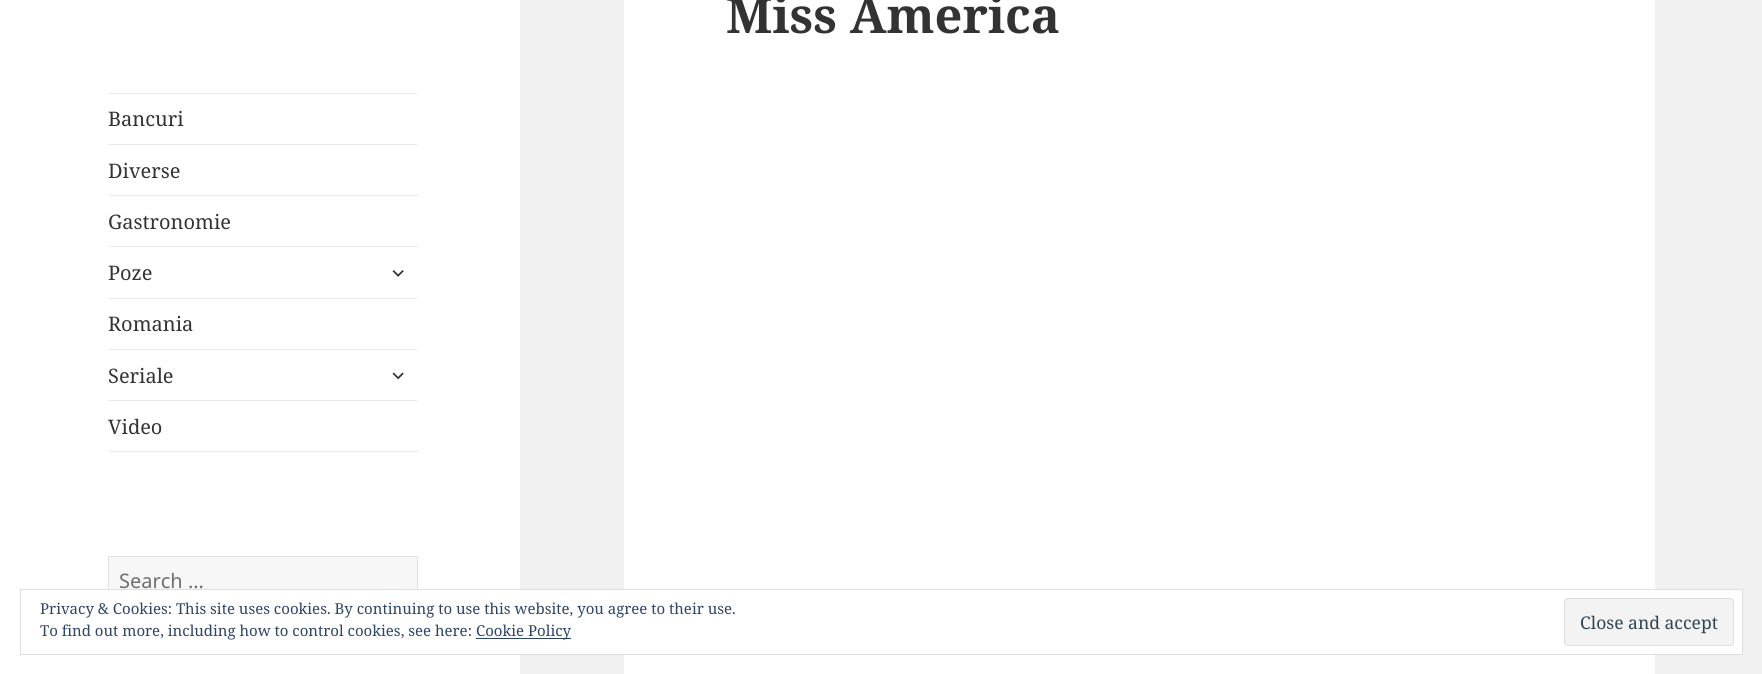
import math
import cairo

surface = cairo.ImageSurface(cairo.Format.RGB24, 1762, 674)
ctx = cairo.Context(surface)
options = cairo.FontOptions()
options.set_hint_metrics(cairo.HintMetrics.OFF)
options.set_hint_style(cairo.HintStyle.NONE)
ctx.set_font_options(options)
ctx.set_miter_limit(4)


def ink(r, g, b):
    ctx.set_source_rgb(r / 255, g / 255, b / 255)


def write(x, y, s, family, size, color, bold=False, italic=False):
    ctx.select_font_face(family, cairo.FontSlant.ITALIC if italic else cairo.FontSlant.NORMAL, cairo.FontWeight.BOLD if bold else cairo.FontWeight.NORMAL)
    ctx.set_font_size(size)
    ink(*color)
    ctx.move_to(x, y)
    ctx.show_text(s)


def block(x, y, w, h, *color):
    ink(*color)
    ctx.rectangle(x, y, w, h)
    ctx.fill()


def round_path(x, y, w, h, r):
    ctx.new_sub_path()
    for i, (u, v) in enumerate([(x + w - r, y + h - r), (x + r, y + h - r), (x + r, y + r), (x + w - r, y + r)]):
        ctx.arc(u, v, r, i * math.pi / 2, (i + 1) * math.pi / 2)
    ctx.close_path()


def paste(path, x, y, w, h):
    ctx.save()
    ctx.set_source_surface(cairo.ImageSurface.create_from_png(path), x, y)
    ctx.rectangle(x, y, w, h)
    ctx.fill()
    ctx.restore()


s1 = dict(family="Noto Serif", size=48.75, color=(51, 51, 51), bold=True)
s2 = dict(family="Noto Serif", size=20, color=(51, 51, 51))
s3 = dict(family="Noto Sans", size=20, color=(110, 110, 110))
s4 = dict(family="Noto Serif", size=15, color=(46, 68, 103))
s5 = dict(family="Noto Serif", size=17.5, color=(46, 68, 83))

ink(241, 241, 241)
ctx.paint()
block(0, 0, 520, 674, 255, 255, 255)
block(624, 0, 1031, 674, 255, 255, 255)
write(726, 33, "Miss America", **s1)
block(108, 93, 310, 1, 235, 235, 235)
block(108, 451, 310, 1, 235, 235, 235)
write(108, 126, "Bancuri", **s2)
block(108, 144, 310, 1, 235, 235, 235)
write(108, 178, "Diverse", **s2)
block(108, 195, 310, 1, 235, 235, 235)
write(108, 229, "Gastronomie", **s2)
block(108, 246, 310, 1, 235, 235, 235)
write(108, 280, "Poze", **s2)
paste("pic1.png", 392, 270, 12, 7)
block(108, 298, 310, 1, 235, 235, 235)
write(108, 331, "Romania", **s2)
block(108, 349, 310, 1, 235, 235, 235)
write(108, 383, "Seriale", **s2)
paste("pic2.png", 392, 372, 12, 8)
block(108, 400, 310, 1, 235, 235, 235)
write(108, 434, "Video", **s2)
block(109, 557, 308, 32, 247, 247, 247)
ctx.rectangle(108.5, 556.5, 309, 49)
ink(227, 227, 227)
ctx.set_line_width(1)
ctx.stroke()
write(119, 588, "Search …", **s3)
block(108, 590, 1634, 64, 255, 255, 255)
ctx.rectangle(20.5, 589.5, 1722, 65)
ink(222, 222, 222)
ctx.stroke()
write(40, 614, "Privacy & Cookies: This site uses cookies. By continuing to use this website, you agree to their use.", **s4)
write(40, 636, "To find out more, including how to control cookies, see here:", **s4)
block(476, 638, 95, 1, 46, 68, 103)
write(476, 636, "Cookie Policy", **s4)
ink(243, 243, 243)
round_path(1564.5, 598.5, 169, 47, 3.5)
ctx.fill_preserve()
ink(222, 222, 222)
ctx.stroke()
write(1580, 629, "Close and accept", **s5)
surface.write_to_png("screenshot.png")
